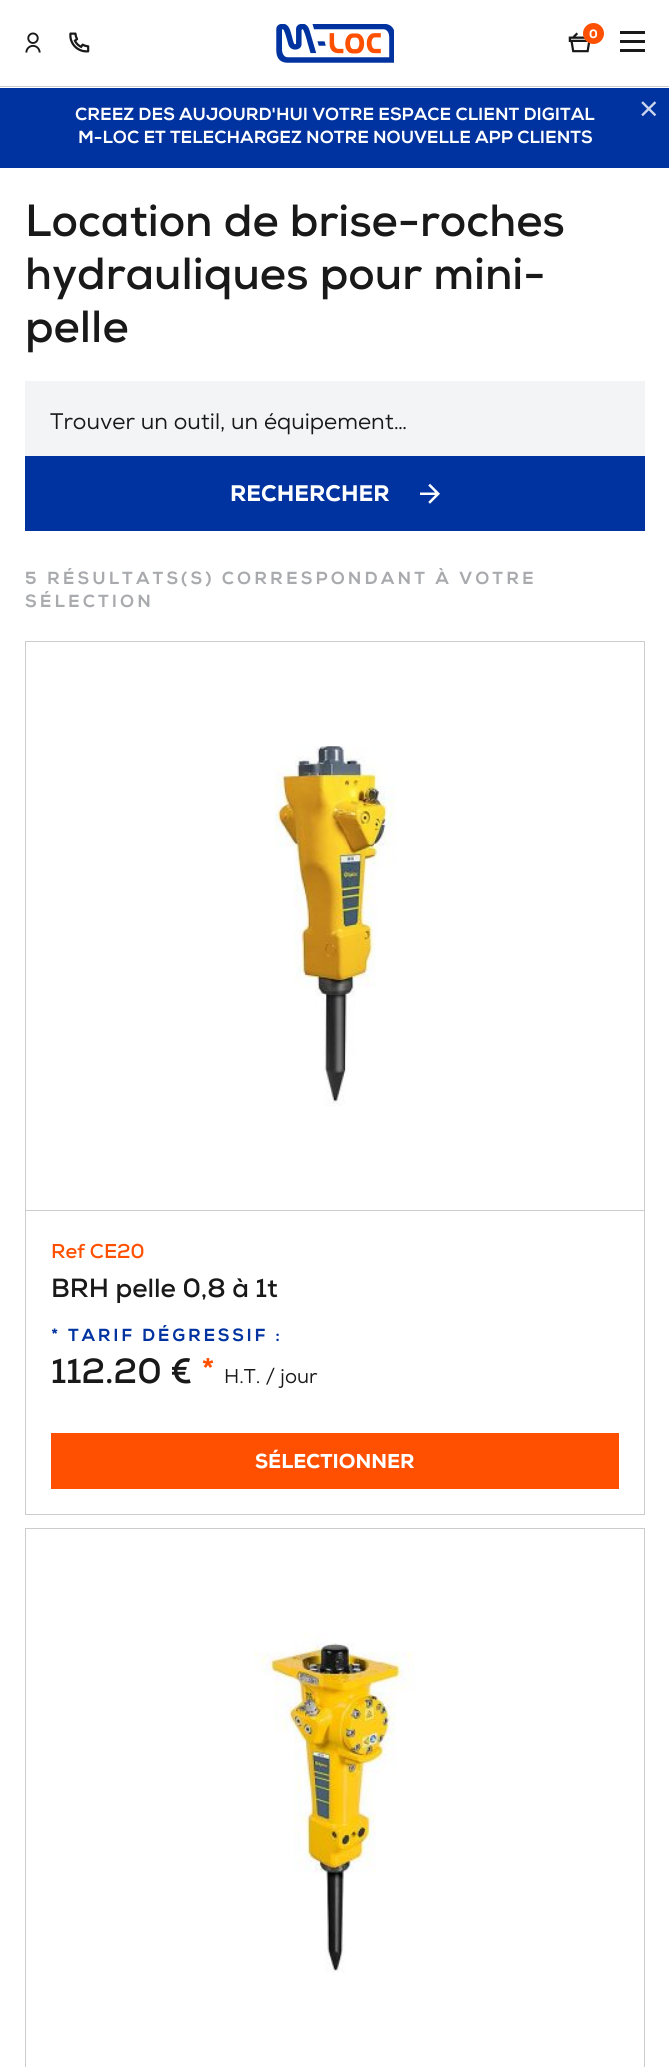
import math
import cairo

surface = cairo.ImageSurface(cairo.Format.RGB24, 669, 2067)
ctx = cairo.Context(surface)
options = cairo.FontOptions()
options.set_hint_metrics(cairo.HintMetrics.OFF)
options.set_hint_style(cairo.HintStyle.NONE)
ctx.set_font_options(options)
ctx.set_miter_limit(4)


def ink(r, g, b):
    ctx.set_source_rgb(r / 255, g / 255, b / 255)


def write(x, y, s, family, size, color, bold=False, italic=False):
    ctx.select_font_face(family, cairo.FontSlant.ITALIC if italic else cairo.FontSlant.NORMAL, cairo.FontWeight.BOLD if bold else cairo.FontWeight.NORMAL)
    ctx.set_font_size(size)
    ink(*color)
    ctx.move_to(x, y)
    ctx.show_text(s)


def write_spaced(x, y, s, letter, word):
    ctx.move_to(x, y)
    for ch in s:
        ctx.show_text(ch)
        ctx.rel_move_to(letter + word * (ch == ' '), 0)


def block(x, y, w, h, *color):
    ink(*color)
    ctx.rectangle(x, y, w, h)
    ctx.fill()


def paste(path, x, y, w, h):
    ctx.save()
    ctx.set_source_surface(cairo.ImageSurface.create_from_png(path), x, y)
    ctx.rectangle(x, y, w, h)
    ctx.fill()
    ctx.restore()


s1 = dict(family="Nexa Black", size=12, color=(255, 255, 255))
s2 = dict(family="Nexa", size=17.5, color=(255, 255, 255), bold=True)
s3 = dict(family="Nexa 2", size=45, color=(26, 25, 25), bold=True)
s4 = dict(family="Nexa", size=22.5, color=(26, 25, 25))
s5 = dict(family="Nexa Black", size=22.5, color=(255, 255, 255))
s6 = dict(family="Nexa 2", size=20, color=(254, 80, 0), bold=True)
s7 = dict(family="Nexa 2", size=26.25, color=(26, 25, 25), bold=True)
s8 = dict(family="Nexa 2", size=35, color=(26, 25, 25), bold=True)
s9 = dict(family="Nexa 2", size=35, color=(254, 80, 0), bold=True)
s10 = dict(family="Nexa", size=20, color=(26, 25, 25))
s11 = dict(family="Nexa Black", size=20, color=(255, 255, 255))

ink(255, 255, 255)
ctx.paint()
block(0, 86, 669, 1, 204, 204, 204)
paste("pic1.png", 25, 32, 16, 21)
paste("pic2.png", 69, 32, 21, 21)
paste("pic3.png", 276, 24, 118, 39)
paste("pic4.png", 568, 32, 23, 21)
ink(254, 80, 0)
ctx.arc(593.5, 33.5, 10.5, 0, 2 * math.pi)
ctx.fill()
write(589, 38, "0", **s1)
block(620, 40, 25, 3, 26, 25, 25)
block(620, 31, 25, 3, 26, 25, 25)
block(620, 49, 25, 3, 26, 25, 25)
block(0, 88, 669, 80, 0, 51, 160)
write(75, 120, "CREEZ DES AUJOURD'HUI VOTRE ESPACE CLIENT DIGITAL", **s2)
write(78, 143, "M-LOC ET TELECHARGEZ NOTRE NOUVELLE APP CLIENTS", **s2)
paste("pic5.png", 641, 101, 16, 16)
write(25, 236, "Location de brise-roches", **s3)
write(25, 289, "hydrauliques pour mini-", **s3)
write(25, 342, "pelle", **s3)
block(25, 381, 620, 75, 243, 244, 245)
write(50, 429, "Trouver un outil, un équipement…", **s4)
block(25, 456, 620, 75, 0, 51, 160)
write(230, 501, "RECHERCHER", **s5)
paste("pic6.png", 420, 483, 20, 21)
ctx.select_font_face("Nexa", cairo.FontSlant.NORMAL, cairo.FontWeight.BOLD)
ctx.set_font_size(17.5)
ink(169, 170, 174)
write_spaced(25, 584, "5 RÉSULTATS(S) CORRESPONDANT À VOTRE", 3.1, 0)
write_spaced(25, 607, "SÉLECTION", 3.1, 0)
ctx.rectangle(25.5, 641.5, 619, 873)
ink(204, 204, 204)
ctx.set_line_width(1)
ctx.stroke()
block(26, 1210, 618, 1, 204, 204, 204)
paste("pic7.png", 274, 746, 122, 360)
write(51, 1258, "Ref CE20", **s6)
write(51, 1297, "BRH pelle 0,8 à 1t", **s7)
ctx.select_font_face("Nexa", cairo.FontSlant.NORMAL, cairo.FontWeight.BOLD)
ctx.set_font_size(17.5)
ink(0, 51, 160)
write_spaced(51, 1341, "* TARIF DÉGRESSIF :", 2.75, 0)
write(51, 1383, "112.20 €", **s8)
write(201, 1383, "*", **s9)
write(224, 1383, "H.T. / jour", **s10)
block(51, 1433, 568, 56, 254, 80, 0)
write(255, 1468, "SÉLECTIONNER", **s11)
ctx.rectangle(25.5, 1528.5, 619, 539)
ink(204, 204, 204)
ctx.stroke()
paste("pic8.png", 254, 1633, 161, 340)
surface.write_to_png("screenshot.png")
